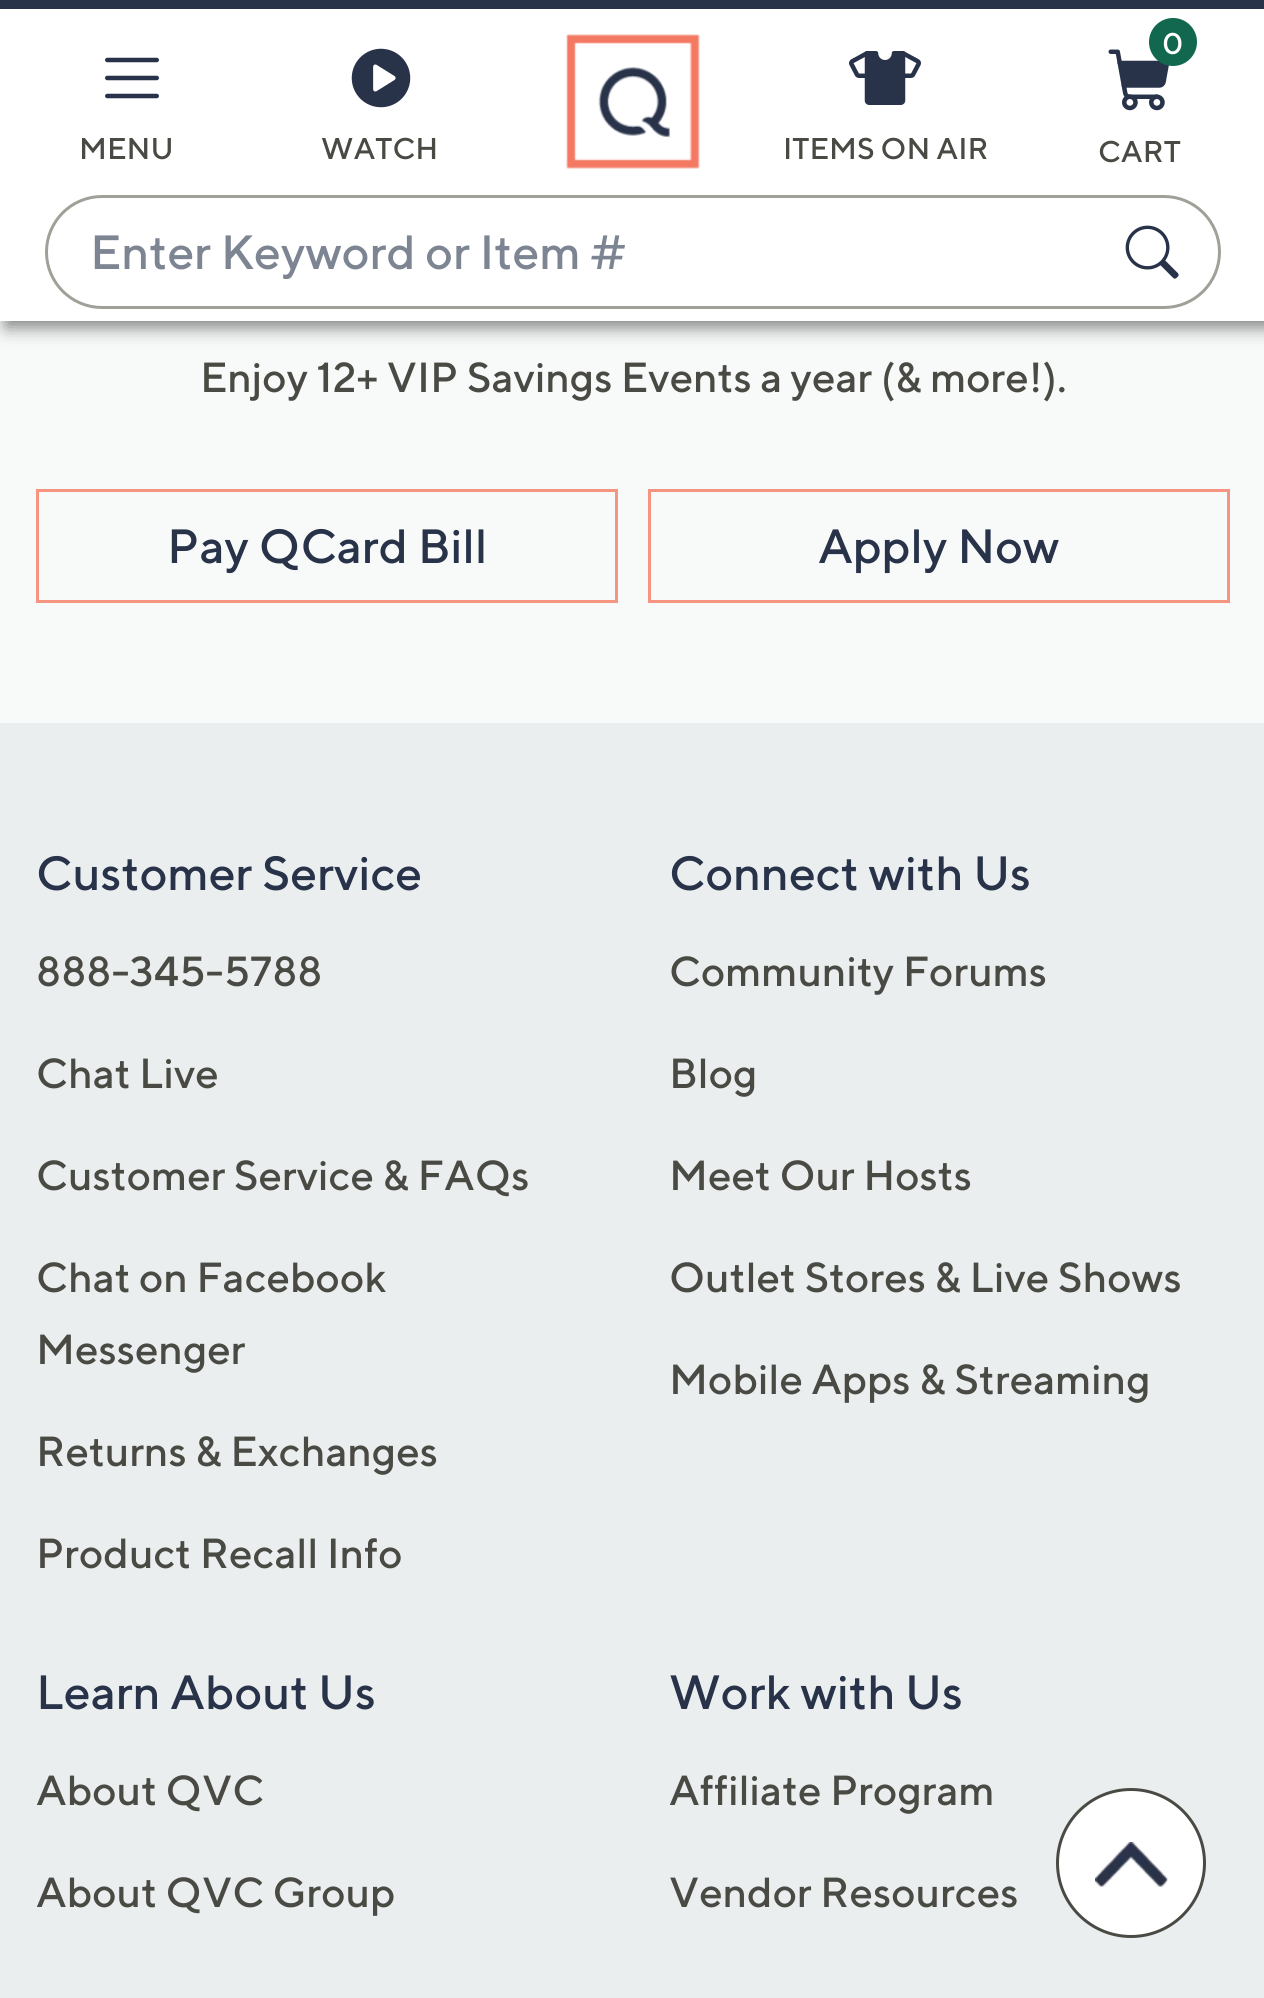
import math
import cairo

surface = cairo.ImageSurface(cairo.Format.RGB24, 1264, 1998)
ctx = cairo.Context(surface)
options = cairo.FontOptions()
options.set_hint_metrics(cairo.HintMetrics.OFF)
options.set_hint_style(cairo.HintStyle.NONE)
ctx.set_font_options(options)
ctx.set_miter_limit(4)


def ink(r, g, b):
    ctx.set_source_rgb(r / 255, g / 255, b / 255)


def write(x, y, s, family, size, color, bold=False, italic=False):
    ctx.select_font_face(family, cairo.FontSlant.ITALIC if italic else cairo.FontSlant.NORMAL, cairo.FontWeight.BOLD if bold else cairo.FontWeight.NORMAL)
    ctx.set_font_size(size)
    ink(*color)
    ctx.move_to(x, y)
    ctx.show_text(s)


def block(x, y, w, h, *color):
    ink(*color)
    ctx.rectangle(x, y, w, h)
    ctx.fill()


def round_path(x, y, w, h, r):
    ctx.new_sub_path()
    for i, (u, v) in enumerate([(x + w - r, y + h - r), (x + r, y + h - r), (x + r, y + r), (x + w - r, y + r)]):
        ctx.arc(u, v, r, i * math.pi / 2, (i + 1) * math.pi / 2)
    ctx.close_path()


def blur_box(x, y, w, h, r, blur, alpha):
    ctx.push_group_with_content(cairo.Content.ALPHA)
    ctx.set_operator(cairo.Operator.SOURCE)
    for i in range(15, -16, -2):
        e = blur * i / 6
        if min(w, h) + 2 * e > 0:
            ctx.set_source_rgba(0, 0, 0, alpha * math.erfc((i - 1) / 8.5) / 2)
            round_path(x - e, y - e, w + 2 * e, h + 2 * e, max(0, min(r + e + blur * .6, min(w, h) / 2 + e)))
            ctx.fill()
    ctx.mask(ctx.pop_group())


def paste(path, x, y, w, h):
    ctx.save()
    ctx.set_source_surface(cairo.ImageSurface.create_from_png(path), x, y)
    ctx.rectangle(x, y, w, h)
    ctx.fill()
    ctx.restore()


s1 = dict(family="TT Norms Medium", size=30, color=(74, 74, 68))
s2 = dict(family="TT Norms Medium", size=30, color=(255, 255, 255))
s3 = dict(family="TT Norms Medium", size=48, color=(126, 133, 146))
s4 = dict(family="TT Norms Medium", size=42, color=(74, 74, 68))
s5 = dict(family="TT Norms Medium", size=48, color=(40, 51, 74))

ink(248, 249, 249)
ctx.paint()
ink(0, 0, 0)
blur_box(6, 198, 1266, 129, 0, 9, 0.5)
block(0, 9, 1264, 312, 255, 255, 255)
block(0, 0, 1264, 9, 40, 51, 74)
paste("pic1.png", 105, 57, 54, 42)
write(79, 159, "MENU", **s1)
paste("pic2.png", 351, 48, 60, 60)
write(321, 159, "WATCH", **s1)
paste("pic3.png", 566, 34, 134, 135)
paste("pic4.png", 849, 51, 72, 54)
write(783, 159, "ITEMS ON AIR", **s1)
paste("pic5.png", 1108, 49, 61, 62)
ink(18, 104, 78)
ctx.arc(1173, 42, 24, 0, 2 * math.pi)
ctx.fill()
write(1162, 54, "0", **s2)
write(1098, 162, "CART", **s1)
round_path(46.5, 196.5, 1173, 111, 55.5)
ink(160, 160, 152)
ctx.set_line_width(3)
ctx.stroke()
write(90, 269, "Enter Keyword or Item #", **s3)
paste("pic6.png", 1125, 225, 54, 54)
write(200, 392, "Enjoy 12+ VIP Savings Events a year (& more!).", **s4)
ctx.rectangle(37.5, 490.5, 579, 111)
ink(246, 148, 130)
ctx.stroke()
write(167, 563, "Pay QCard Bill", **s5)
ctx.rectangle(649.5, 490.5, 579, 111)
ink(246, 148, 130)
ctx.stroke()
write(818, 563, "Apply Now", **s5)
block(0, 723, 1264, 1275, 235, 238, 239)
write(36, 890, "Customer Service", **s5)
write(36, 986, "888-345-5788", **s4)
write(36, 1088, "Chat Live", **s4)
write(36, 1190, "Customer Service & FAQs", **s4)
write(36, 1292, "Chat on Facebook", **s4)
write(36, 1364, "Messenger", **s4)
write(36, 1466, "Returns & Exchanges", **s4)
write(36, 1568, "Product Recall Info", **s4)
write(669, 890, "Connect with Us", **s5)
write(669, 986, "Community Forums", **s4)
write(669, 1088, "Blog", **s4)
write(669, 1190, "Meet Our Hosts", **s4)
write(669, 1292, "Outlet Stores & Live Shows", **s4)
write(669, 1394, "Mobile Apps & Streaming", **s4)
write(36, 1709, "Learn About Us", **s5)
write(36, 1805, "About QVC", **s4)
write(36, 1907, "About QVC Group", **s4)
write(669, 1709, "Work with Us", **s5)
write(669, 1805, "Affiliate Program", **s4)
write(669, 1907, "Vendor Resources", **s4)
ink(255, 255, 255)
ctx.new_path()
ctx.arc(1131, 1863, 73.5, 0, 2 * math.pi)
ctx.fill_preserve()
ink(74, 74, 68)
ctx.stroke()
paste("pic7.png", 1095, 1842, 73, 45)
surface.write_to_png("screenshot.png")
